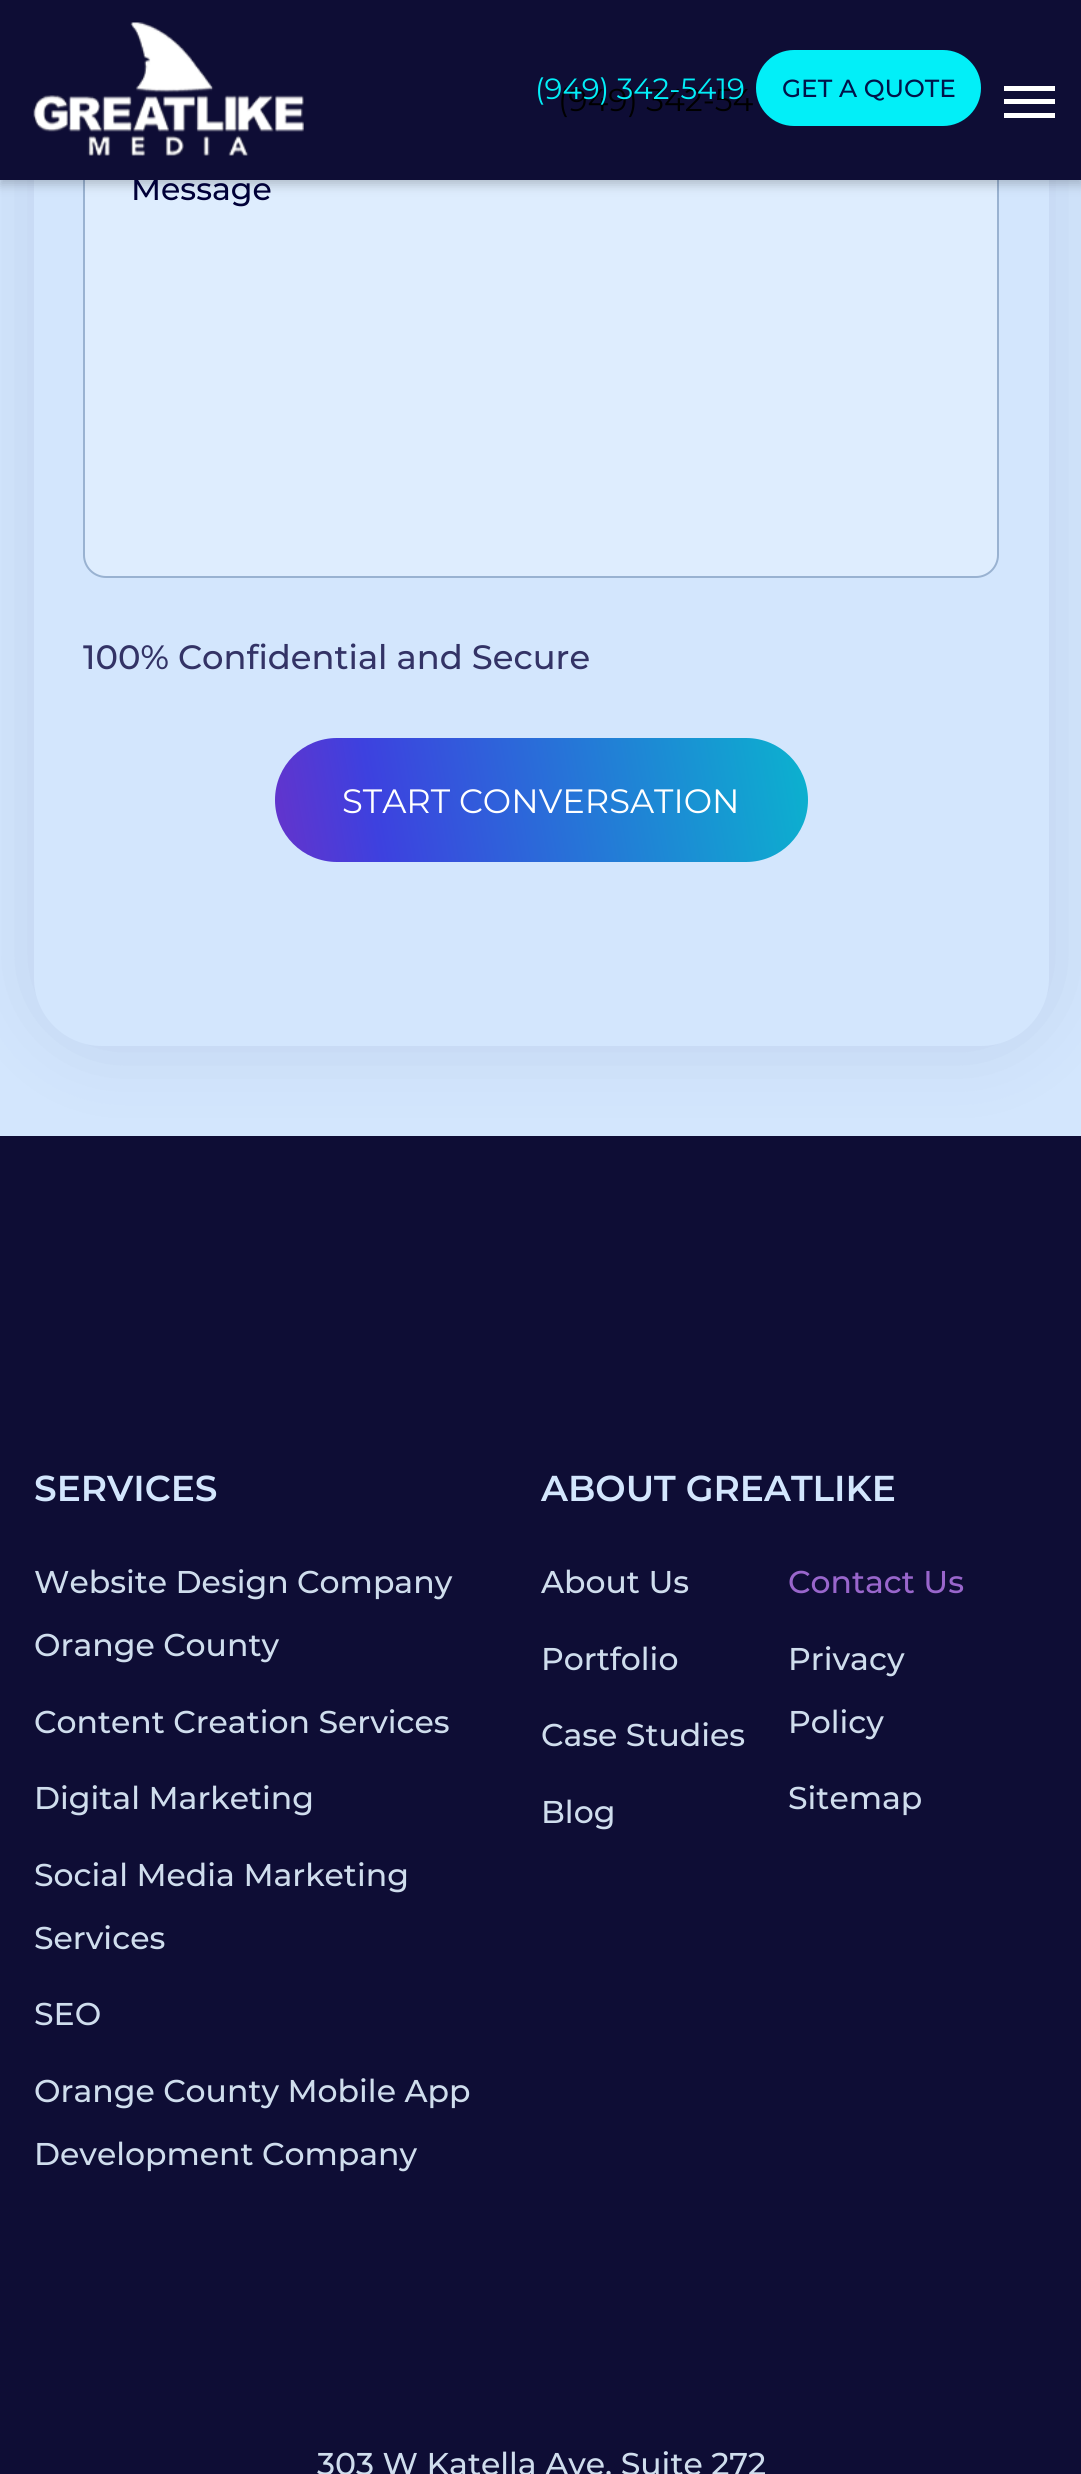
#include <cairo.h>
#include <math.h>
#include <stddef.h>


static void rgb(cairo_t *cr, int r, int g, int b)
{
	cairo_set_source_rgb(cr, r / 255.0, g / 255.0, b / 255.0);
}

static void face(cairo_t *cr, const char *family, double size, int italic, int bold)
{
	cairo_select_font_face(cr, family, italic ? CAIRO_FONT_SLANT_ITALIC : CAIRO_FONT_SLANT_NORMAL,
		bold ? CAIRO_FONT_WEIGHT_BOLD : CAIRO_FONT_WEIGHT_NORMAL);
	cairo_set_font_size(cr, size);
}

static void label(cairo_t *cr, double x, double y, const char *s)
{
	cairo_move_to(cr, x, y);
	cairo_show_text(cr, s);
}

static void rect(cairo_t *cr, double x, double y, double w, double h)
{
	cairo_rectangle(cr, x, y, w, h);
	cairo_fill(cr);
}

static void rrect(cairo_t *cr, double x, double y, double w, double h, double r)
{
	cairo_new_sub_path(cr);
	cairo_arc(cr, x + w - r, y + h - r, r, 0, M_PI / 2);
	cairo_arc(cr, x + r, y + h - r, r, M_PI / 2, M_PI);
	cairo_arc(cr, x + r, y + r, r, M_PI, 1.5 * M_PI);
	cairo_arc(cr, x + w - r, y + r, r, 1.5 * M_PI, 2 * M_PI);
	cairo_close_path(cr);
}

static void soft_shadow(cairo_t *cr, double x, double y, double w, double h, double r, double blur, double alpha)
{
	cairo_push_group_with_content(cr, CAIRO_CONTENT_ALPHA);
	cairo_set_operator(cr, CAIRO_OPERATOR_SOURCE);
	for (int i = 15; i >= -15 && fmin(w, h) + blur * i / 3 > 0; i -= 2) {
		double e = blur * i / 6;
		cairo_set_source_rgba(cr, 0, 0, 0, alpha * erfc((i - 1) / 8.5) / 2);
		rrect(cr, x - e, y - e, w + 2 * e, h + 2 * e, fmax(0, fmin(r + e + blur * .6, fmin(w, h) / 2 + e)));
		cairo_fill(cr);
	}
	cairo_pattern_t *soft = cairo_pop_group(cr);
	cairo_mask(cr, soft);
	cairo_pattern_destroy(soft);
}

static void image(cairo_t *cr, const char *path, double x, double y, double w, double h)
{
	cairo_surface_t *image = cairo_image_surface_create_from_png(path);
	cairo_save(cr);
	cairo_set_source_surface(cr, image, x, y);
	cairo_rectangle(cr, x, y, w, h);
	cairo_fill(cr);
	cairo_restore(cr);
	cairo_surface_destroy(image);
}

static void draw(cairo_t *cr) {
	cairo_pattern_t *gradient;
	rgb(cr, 211, 230, 253);
	cairo_paint(cr);
	rgb(cr, 30, 50, 111);
	soft_shadow(cr, 34, -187, 1015, 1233, 68, 39.5, 0.12);
	rgb(cr, 211, 230, 253);
	rrect(cr, 34, -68, 1015, 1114, 68);
	cairo_fill(cr);
	rgb(cr, 222, 237, 254);
	rrect(cr, 84, 125, 914, 452, 22);
	cairo_fill_preserve(cr);
	rgb(cr, 153, 178, 209);
	cairo_stroke(cr);
	rgb(cr, 0, 0, 0);
	soft_shadow(cr, 0, 5, 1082, 180, 0, 5.5, 0.2);
	face(cr, "Montserrat Medium", 31.5, 0, 0);
	rgb(cr, 0, 0, 56);
	label(cr, 131, 200, "Message");
	rgb(cr, 14, 13, 53);
	rect(cr, 0, 0, 1081, 180);
	image(cr, "image0.png", 33, 22, 271, 134);
	face(cr, "Montserrat", 31.5, 0, 0);
	rgb(cr, 0, 0, 0);
	label(cr, 558, 111, "(949) 342-54");
	face(cr, "Montserrat", 29.25, 0, 0);
	rgb(cr, 2, 239, 248);
	label(cr, 535, 99, "(949) 342-5419");
	rrect(cr, 758.5, 52.5, 220, 71, 35.5);
	cairo_fill_preserve(cr);
	cairo_set_line_width(cr, 5);
	cairo_stroke(cr);
	face(cr, "Montserrat Medium", 24.75, 0, 0);
	rgb(cr, 0, 19, 74);
	label(cr, 782, 97, "GET A QUOTE");
	rgb(cr, 255, 255, 255);
	rect(cr, 1004, 86, 51, 5);
	rect(cr, 1004, 99, 51, 5);
	rect(cr, 1004, 113, 51, 5);
	face(cr, "Montserrat Medium", 33.75, 0, 0);
	rgb(cr, 51, 51, 102);
	label(cr, 83, 669, "100% Confidential and Secure");
	gradient = cairo_pattern_create_linear(280, 893, 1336, 707);
	cairo_pattern_add_color_stop_rgba(gradient, 0, 0.396, 0.2, 0.796, 1);
	cairo_pattern_add_color_stop_rgba(gradient, 0.1, 0.239, 0.255, 0.875, 1);
	cairo_pattern_add_color_stop_rgba(gradient, 0.6, 0, 0.796, 0.796, 1);
	cairo_set_source(cr, gradient);
	cairo_pattern_destroy(gradient);
	rrect(cr, 275, 738, 533, 124, 62);
	cairo_fill(cr);
	face(cr, "Montserrat", 33.75, 0, 0);
	rgb(cr, 255, 255, 255);
	label(cr, 342, 813, "START CONVERSATION");
	rgb(cr, 14, 13, 53);
	rect(cr, 0, 1136, 1081, 1338);
	face(cr, "Montserrat SemiBold", 36, 0, 0);
	rgb(cr, 211, 230, 253);
	label(cr, 34, 1501, "SERVICES");
	face(cr, "Montserrat Medium", 31.5, 0, 0);
	rgb(cr, 207, 221, 237);
	label(cr, 34, 1593, "Website Design Company");
	label(cr, 34, 1656, "Orange County");
	label(cr, 34, 1733, "Content Creation Services");
	label(cr, 34, 1809, "Digital Marketing");
	label(cr, 34, 1886, "Social Media Marketing");
	label(cr, 34, 1949, "Services");
	label(cr, 34, 2025, "SEO");
	label(cr, 34, 2102, "Orange County Mobile App");
	label(cr, 34, 2165, "Development Company");
	face(cr, "Montserrat SemiBold", 36, 0, 0);
	rgb(cr, 211, 230, 253);
	label(cr, 541, 1501, "ABOUT GREATLIKE");
	face(cr, "Montserrat Medium", 31.5, 0, 0);
	rgb(cr, 207, 221, 237);
	label(cr, 541, 1593, "About Us");
	rgb(cr, 153, 102, 204);
	label(cr, 788, 1593, "Contact Us");
	rgb(cr, 207, 221, 237);
	label(cr, 541, 1670, "Portfolio");
	label(cr, 788, 1670, "Privacy");
	label(cr, 788, 1733, "Policy");
	label(cr, 541, 1746, "Case Studies");
	label(cr, 541, 1823, "Blog");
	label(cr, 788, 1809, "Sitemap");
	label(cr, 317, 2475, "303 W Katella Ave. Suite 272");
}

int main(void) {
	cairo_surface_t *surface = cairo_image_surface_create(CAIRO_FORMAT_RGB24, 1081, 2474);
	cairo_t *cr = cairo_create(surface);
	cairo_font_options_t *options = cairo_font_options_create();
	cairo_font_options_set_hint_metrics(options, CAIRO_HINT_METRICS_OFF);
	cairo_font_options_set_hint_style(options, CAIRO_HINT_STYLE_NONE);
	cairo_set_font_options(cr, options);
	cairo_set_miter_limit(cr, 4);
	draw(cr);
	cairo_surface_write_to_png(surface, "render.png");
	cairo_font_options_destroy(options);
	cairo_destroy(cr);
	cairo_surface_destroy(surface);
	return 0;
}
